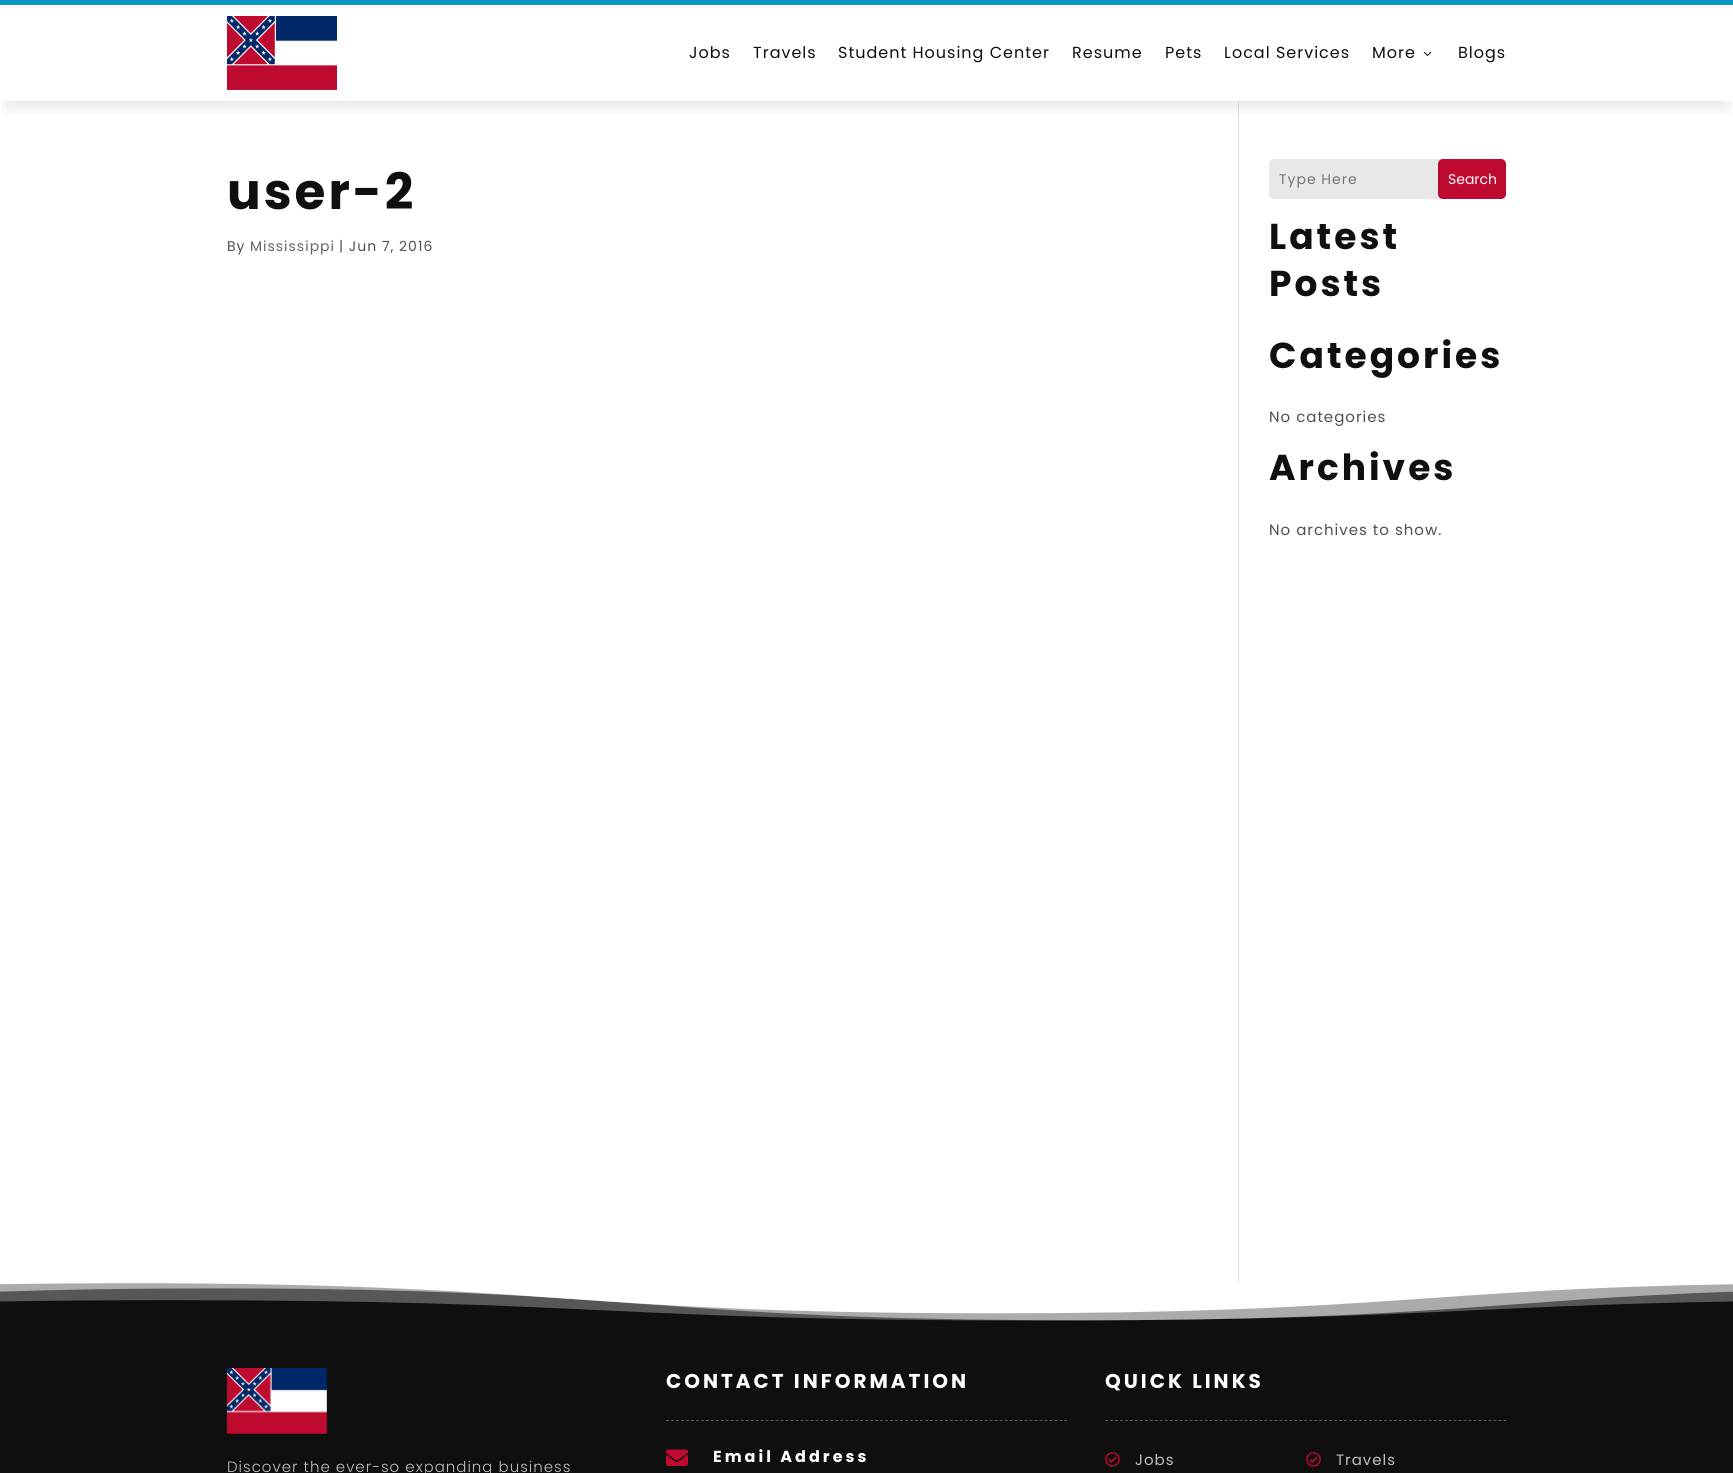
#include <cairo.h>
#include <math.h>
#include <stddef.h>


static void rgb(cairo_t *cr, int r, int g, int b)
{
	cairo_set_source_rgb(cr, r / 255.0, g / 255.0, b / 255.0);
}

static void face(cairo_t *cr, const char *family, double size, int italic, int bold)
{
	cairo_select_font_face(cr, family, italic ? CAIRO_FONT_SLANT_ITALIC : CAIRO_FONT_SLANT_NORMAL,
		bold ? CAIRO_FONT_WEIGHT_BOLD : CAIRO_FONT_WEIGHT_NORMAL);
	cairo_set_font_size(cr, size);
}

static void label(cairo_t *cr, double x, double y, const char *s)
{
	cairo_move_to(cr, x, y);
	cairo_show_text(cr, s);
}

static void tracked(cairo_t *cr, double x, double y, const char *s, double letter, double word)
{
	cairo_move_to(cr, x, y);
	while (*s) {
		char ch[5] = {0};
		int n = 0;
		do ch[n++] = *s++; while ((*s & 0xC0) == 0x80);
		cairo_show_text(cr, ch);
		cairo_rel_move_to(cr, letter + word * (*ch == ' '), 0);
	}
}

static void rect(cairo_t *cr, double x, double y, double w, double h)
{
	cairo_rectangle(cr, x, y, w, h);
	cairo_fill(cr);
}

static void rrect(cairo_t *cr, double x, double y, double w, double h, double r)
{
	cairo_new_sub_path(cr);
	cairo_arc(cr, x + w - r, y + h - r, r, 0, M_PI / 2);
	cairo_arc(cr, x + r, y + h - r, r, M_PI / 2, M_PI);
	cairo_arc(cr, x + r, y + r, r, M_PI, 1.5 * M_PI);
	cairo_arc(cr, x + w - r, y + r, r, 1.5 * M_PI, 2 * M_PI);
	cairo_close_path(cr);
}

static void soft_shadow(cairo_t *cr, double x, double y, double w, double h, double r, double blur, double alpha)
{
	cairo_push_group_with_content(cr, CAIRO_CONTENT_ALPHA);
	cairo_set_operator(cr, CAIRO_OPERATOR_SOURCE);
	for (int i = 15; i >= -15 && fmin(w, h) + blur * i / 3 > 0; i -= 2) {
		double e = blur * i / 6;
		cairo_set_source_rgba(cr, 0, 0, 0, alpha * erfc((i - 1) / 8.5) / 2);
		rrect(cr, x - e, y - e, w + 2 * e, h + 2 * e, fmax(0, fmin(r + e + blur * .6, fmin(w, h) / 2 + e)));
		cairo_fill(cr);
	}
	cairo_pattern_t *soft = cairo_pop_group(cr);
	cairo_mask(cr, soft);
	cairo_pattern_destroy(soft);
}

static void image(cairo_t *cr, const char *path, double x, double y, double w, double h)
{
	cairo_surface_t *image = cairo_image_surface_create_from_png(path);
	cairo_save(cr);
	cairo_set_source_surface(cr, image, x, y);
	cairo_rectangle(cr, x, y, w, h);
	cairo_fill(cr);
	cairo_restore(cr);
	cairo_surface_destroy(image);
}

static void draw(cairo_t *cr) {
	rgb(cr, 255, 255, 255);
	cairo_paint(cr);
	rgb(cr, 226, 226, 226);
	rect(cr, 1238, 101, 1, 1182);
	cairo_save(cr);
	cairo_rectangle(cr, 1, 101, 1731, 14);
	cairo_clip(cr);
	rgb(cr, 0, 0, 0);
	soft_shadow(cr, 6, 18, 1721, 89, 0, 9, 0.1);
	cairo_restore(cr);
	rgb(cr, 10, 150, 201);
	rect(cr, 0, 0, 1733, 5);
	image(cr, "image0.png", 227, 16, 110, 74);
	face(cr, "Poppins", 16, 0, 0);
	rgb(cr, 15, 15, 15);
	tracked(cr, 689, 58, "Jobs", 1, 0);
	tracked(cr, 753, 58, "Travels", 1, 0);
	tracked(cr, 838, 58, "Student Housing Center", 1, 0);
	tracked(cr, 1072, 58, "Resume", 1, 0);
	tracked(cr, 1165, 58, "Pets", 1, 0);
	tracked(cr, 1224, 58, "Local Services", 1, 0);
	tracked(cr, 1372, 58, "More", 1, 0);
	image(cr, "image1.png", 1423, 51, 9, 5);
	tracked(cr, 1458, 58, "Blogs", 1, 0);
	face(cr, "Poppins", 50, 0, 1);
	tracked(cr, 227, 209, "user-2", 3, 0);
	face(cr, "Poppins", 14, 0, 0);
	rgb(cr, 79, 79, 79);
	tracked(cr, 227, 251, "By", 1, 0);
	rgb(cr, 102, 102, 102);
	tracked(cr, 250, 251, "Mississippi", 1, 0);
	rgb(cr, 79, 79, 79);
	tracked(cr, 339, 251, "| Jun 7, 2016", 1, 0);
	rgb(cr, 232, 232, 232);
	rrect(cr, 1269, 159, 237, 40, 5);
	cairo_fill(cr);
	rgb(cr, 117, 117, 117);
	tracked(cr, 1279, 184, "Type Here", 1, 0);
	rgb(cr, 191, 10, 48);
	rrect(cr, 1438, 159, 68, 40, 5);
	cairo_fill(cr);
	rgb(cr, 255, 255, 255);
	label(cr, 1448, 184, "Search");
	face(cr, "Poppins", 36, 0, 1);
	rgb(cr, 15, 15, 15);
	tracked(cr, 1269, 249, "Latest", 3, 0);
	tracked(cr, 1269, 296, "Posts", 3, 0);
	tracked(cr, 1269, 368, "Categories", 3, 0);
	face(cr, "Poppins", 15, 0, 0);
	rgb(cr, 79, 79, 79);
	tracked(cr, 1269, 422, "No categories", 1, 0);
	face(cr, "Poppins", 36, 0, 1);
	rgb(cr, 15, 15, 15);
	tracked(cr, 1269, 480, "Archives", 3, 0);
	face(cr, "Poppins", 15, 0, 0);
	rgb(cr, 79, 79, 79);
	tracked(cr, 1269, 535, "No archives to show.", 1, 0);
	rgb(cr, 15, 15, 15);
	rect(cr, 0, 1283, 1733, 190);
	image(cr, "image2.png", 0, 1283, 1733, 38);
	image(cr, "image3.png", 227, 1368, 100, 66);
	face(cr, "Poppins Light", 15, 0, 0);
	rgb(cr, 191, 191, 191);
	tracked(cr, 227, 1472, "Discover the ever-so expanding business", 1, 0);
	face(cr, "Poppins", 20, 0, 1);
	rgb(cr, 255, 255, 255);
	tracked(cr, 666, 1388, "CONTACT INFORMATION", 3, 0);
	cairo_new_path(cr);
	cairo_move_to(cr, 666, 1420.5);
	cairo_line_to(cr, 1067, 1420.5);
	rgb(cr, 85, 85, 85);
	cairo_set_line_width(cr, 1);
	cairo_set_dash(cr, (double[]){3, 1.98}, 2, 0);
	cairo_stroke(cr);
	image(cr, "image4.png", 666, 1449, 22, 17);
	face(cr, "Poppins", 16, 0, 1);
	rgb(cr, 255, 255, 255);
	tracked(cr, 713, 1462, "Email Address", 3, 0);
	face(cr, "Poppins", 20, 0, 1);
	tracked(cr, 1105, 1388, "QUICK LINKS", 3, 0);
	cairo_new_path(cr);
	cairo_move_to(cr, 1105, 1420.5);
	cairo_line_to(cr, 1506, 1420.5);
	rgb(cr, 85, 85, 85);
	cairo_stroke(cr);
	image(cr, "image5.png", 1105, 1452, 15, 15);
	face(cr, "Poppins", 15, 0, 0);
	rgb(cr, 191, 191, 191);
	tracked(cr, 1135, 1465, "Jobs", 1, 0);
	image(cr, "image5.png", 1306, 1452, 15, 15);
	tracked(cr, 1336, 1465, "Travels", 1, 0);
}

int main(void) {
	cairo_surface_t *surface = cairo_image_surface_create(CAIRO_FORMAT_RGB24, 1733, 1473);
	cairo_t *cr = cairo_create(surface);
	cairo_font_options_t *options = cairo_font_options_create();
	cairo_font_options_set_hint_metrics(options, CAIRO_HINT_METRICS_OFF);
	cairo_font_options_set_hint_style(options, CAIRO_HINT_STYLE_NONE);
	cairo_set_font_options(cr, options);
	cairo_set_miter_limit(cr, 4);
	draw(cr);
	cairo_surface_write_to_png(surface, "render.png");
	cairo_font_options_destroy(options);
	cairo_destroy(cr);
	cairo_surface_destroy(surface);
	return 0;
}
